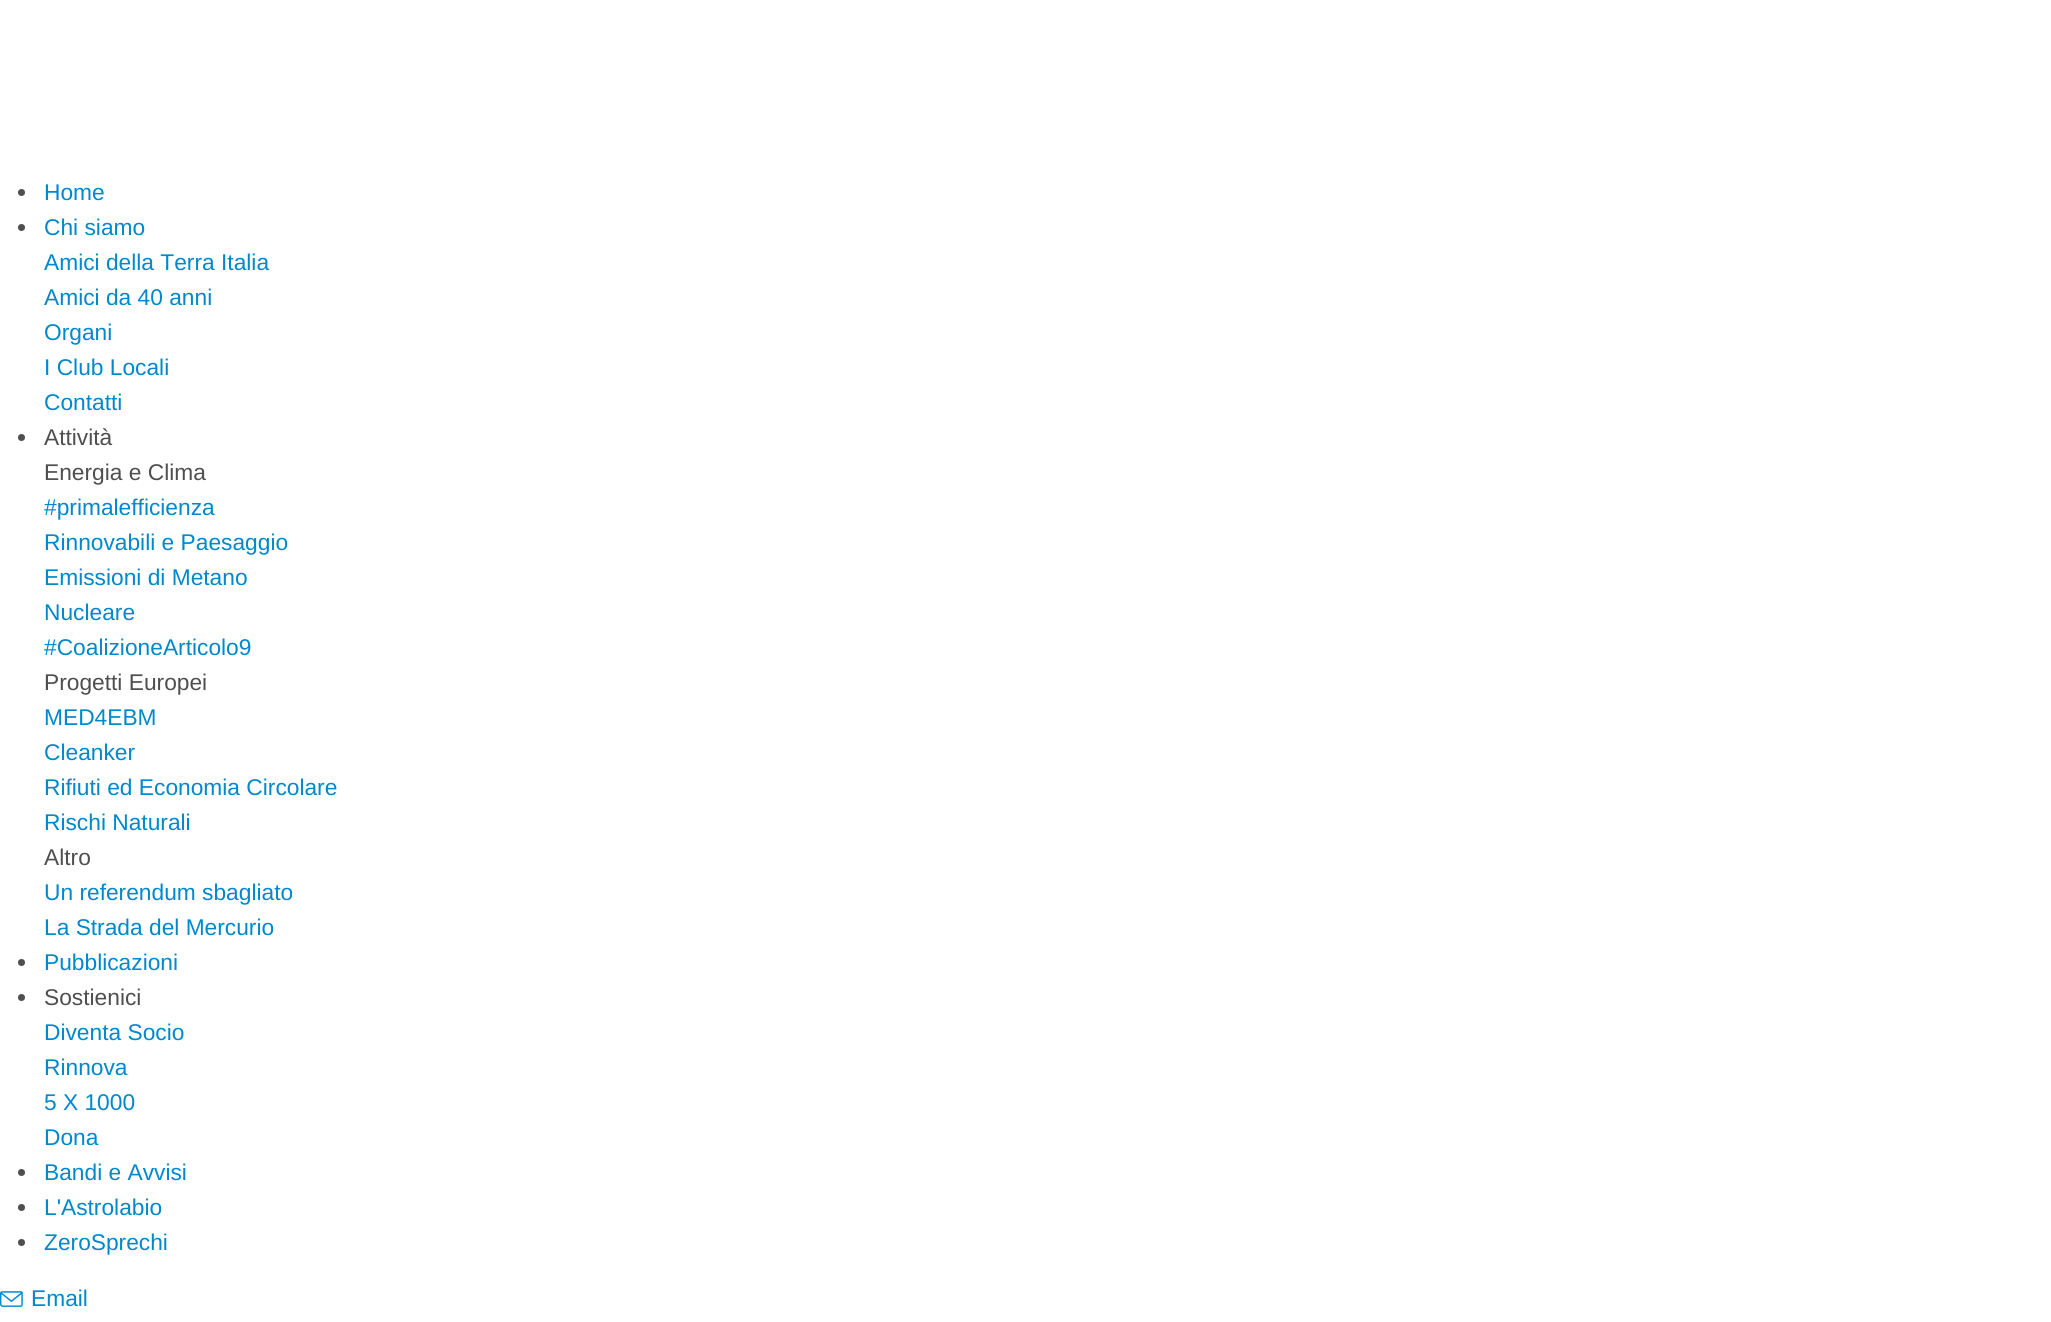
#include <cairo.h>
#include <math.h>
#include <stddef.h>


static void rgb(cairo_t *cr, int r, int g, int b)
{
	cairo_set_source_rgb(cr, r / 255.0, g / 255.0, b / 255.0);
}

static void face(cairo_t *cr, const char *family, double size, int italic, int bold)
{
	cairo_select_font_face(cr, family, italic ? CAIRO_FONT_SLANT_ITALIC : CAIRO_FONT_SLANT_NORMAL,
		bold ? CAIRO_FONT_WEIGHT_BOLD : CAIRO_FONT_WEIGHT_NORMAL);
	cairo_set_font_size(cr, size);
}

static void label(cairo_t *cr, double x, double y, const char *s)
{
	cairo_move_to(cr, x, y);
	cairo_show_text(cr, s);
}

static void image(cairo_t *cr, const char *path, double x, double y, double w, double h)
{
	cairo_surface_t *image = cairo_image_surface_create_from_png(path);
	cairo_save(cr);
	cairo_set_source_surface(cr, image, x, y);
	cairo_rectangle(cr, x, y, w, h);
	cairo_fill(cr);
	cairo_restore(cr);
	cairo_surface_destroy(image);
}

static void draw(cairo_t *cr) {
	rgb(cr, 255, 255, 255);
	cairo_paint(cr);
	rgb(cr, 80, 79, 79);
	cairo_arc(cr, 21.5, 192.5, 3.5, 0, 2 * M_PI);
	cairo_fill(cr);
	face(cr, "Liberation Sans", 22.75, 0, 0);
	rgb(cr, 0, 136, 204);
	label(cr, 44, 200, "Home");
	rgb(cr, 80, 79, 79);
	cairo_new_path(cr);
	cairo_arc(cr, 21.5, 227.5, 3.5, 0, 2 * M_PI);
	cairo_fill(cr);
	rgb(cr, 0, 136, 204);
	label(cr, 44, 235, "Chi siamo");
	label(cr, 44, 270, "Amici della Terra Italia");
	label(cr, 44, 305, "Amici da 40 anni");
	label(cr, 44, 340, "Organi");
	label(cr, 44, 375, "I Club Locali");
	label(cr, 44, 410, "Contatti");
	rgb(cr, 80, 79, 79);
	cairo_new_path(cr);
	cairo_arc(cr, 21.5, 437.5, 3.5, 0, 2 * M_PI);
	cairo_fill(cr);
	label(cr, 44, 445, "Attività");
	label(cr, 44, 480, "Energia e Clima");
	rgb(cr, 0, 136, 204);
	label(cr, 44, 515, "#primalefficienza");
	label(cr, 44, 550, "Rinnovabili e Paesaggio");
	label(cr, 44, 585, "Emissioni di Metano");
	label(cr, 44, 620, "Nucleare");
	label(cr, 44, 655, "#CoalizioneArticolo9");
	rgb(cr, 80, 79, 79);
	label(cr, 44, 690, "Progetti Europei");
	rgb(cr, 0, 136, 204);
	label(cr, 44, 725, "MED4EBM");
	label(cr, 44, 760, "Cleanker");
	label(cr, 44, 795, "Rifiuti ed Economia Circolare");
	label(cr, 44, 830, "Rischi Naturali");
	rgb(cr, 80, 79, 79);
	label(cr, 44, 865, "Altro");
	rgb(cr, 0, 136, 204);
	label(cr, 44, 900, "Un referendum sbagliato");
	label(cr, 44, 935, "La Strada del Mercurio");
	rgb(cr, 80, 79, 79);
	cairo_new_path(cr);
	cairo_arc(cr, 21.5, 962.5, 3.5, 0, 2 * M_PI);
	cairo_fill(cr);
	rgb(cr, 0, 136, 204);
	label(cr, 44, 970, "Pubblicazioni");
	rgb(cr, 80, 79, 79);
	cairo_new_path(cr);
	cairo_arc(cr, 21.5, 997.5, 3.5, 0, 2 * M_PI);
	cairo_fill(cr);
	label(cr, 44, 1005, "Sostienici");
	rgb(cr, 0, 136, 204);
	label(cr, 44, 1040, "Diventa Socio");
	label(cr, 44, 1075, "Rinnova");
	label(cr, 44, 1110, "5 X 1000");
	label(cr, 44, 1145, "Dona");
	rgb(cr, 80, 79, 79);
	cairo_new_path(cr);
	cairo_arc(cr, 21.5, 1172.5, 3.5, 0, 2 * M_PI);
	cairo_fill(cr);
	rgb(cr, 0, 136, 204);
	label(cr, 44, 1180, "Bandi e Avvisi");
	rgb(cr, 80, 79, 79);
	cairo_new_path(cr);
	cairo_arc(cr, 21.5, 1207.5, 3.5, 0, 2 * M_PI);
	cairo_fill(cr);
	rgb(cr, 0, 136, 204);
	label(cr, 44, 1215, "L'Astrolabio");
	rgb(cr, 80, 79, 79);
	cairo_new_path(cr);
	cairo_arc(cr, 21.5, 1242.5, 3.5, 0, 2 * M_PI);
	cairo_fill(cr);
	rgb(cr, 0, 136, 204);
	label(cr, 44, 1250, "ZeroSprechi");
	image(cr, "image0.png", 0, 1291, 23, 16);
	label(cr, 31, 1306, "Email");
}

int main(void) {
	cairo_surface_t *surface = cairo_image_surface_create(CAIRO_FORMAT_RGB24, 2051, 1322);
	cairo_t *cr = cairo_create(surface);
	cairo_font_options_t *options = cairo_font_options_create();
	cairo_font_options_set_hint_metrics(options, CAIRO_HINT_METRICS_OFF);
	cairo_font_options_set_hint_style(options, CAIRO_HINT_STYLE_NONE);
	cairo_set_font_options(cr, options);
	cairo_set_miter_limit(cr, 4);
	draw(cr);
	cairo_surface_write_to_png(surface, "render.png");
	cairo_font_options_destroy(options);
	cairo_destroy(cr);
	cairo_surface_destroy(surface);
	return 0;
}
